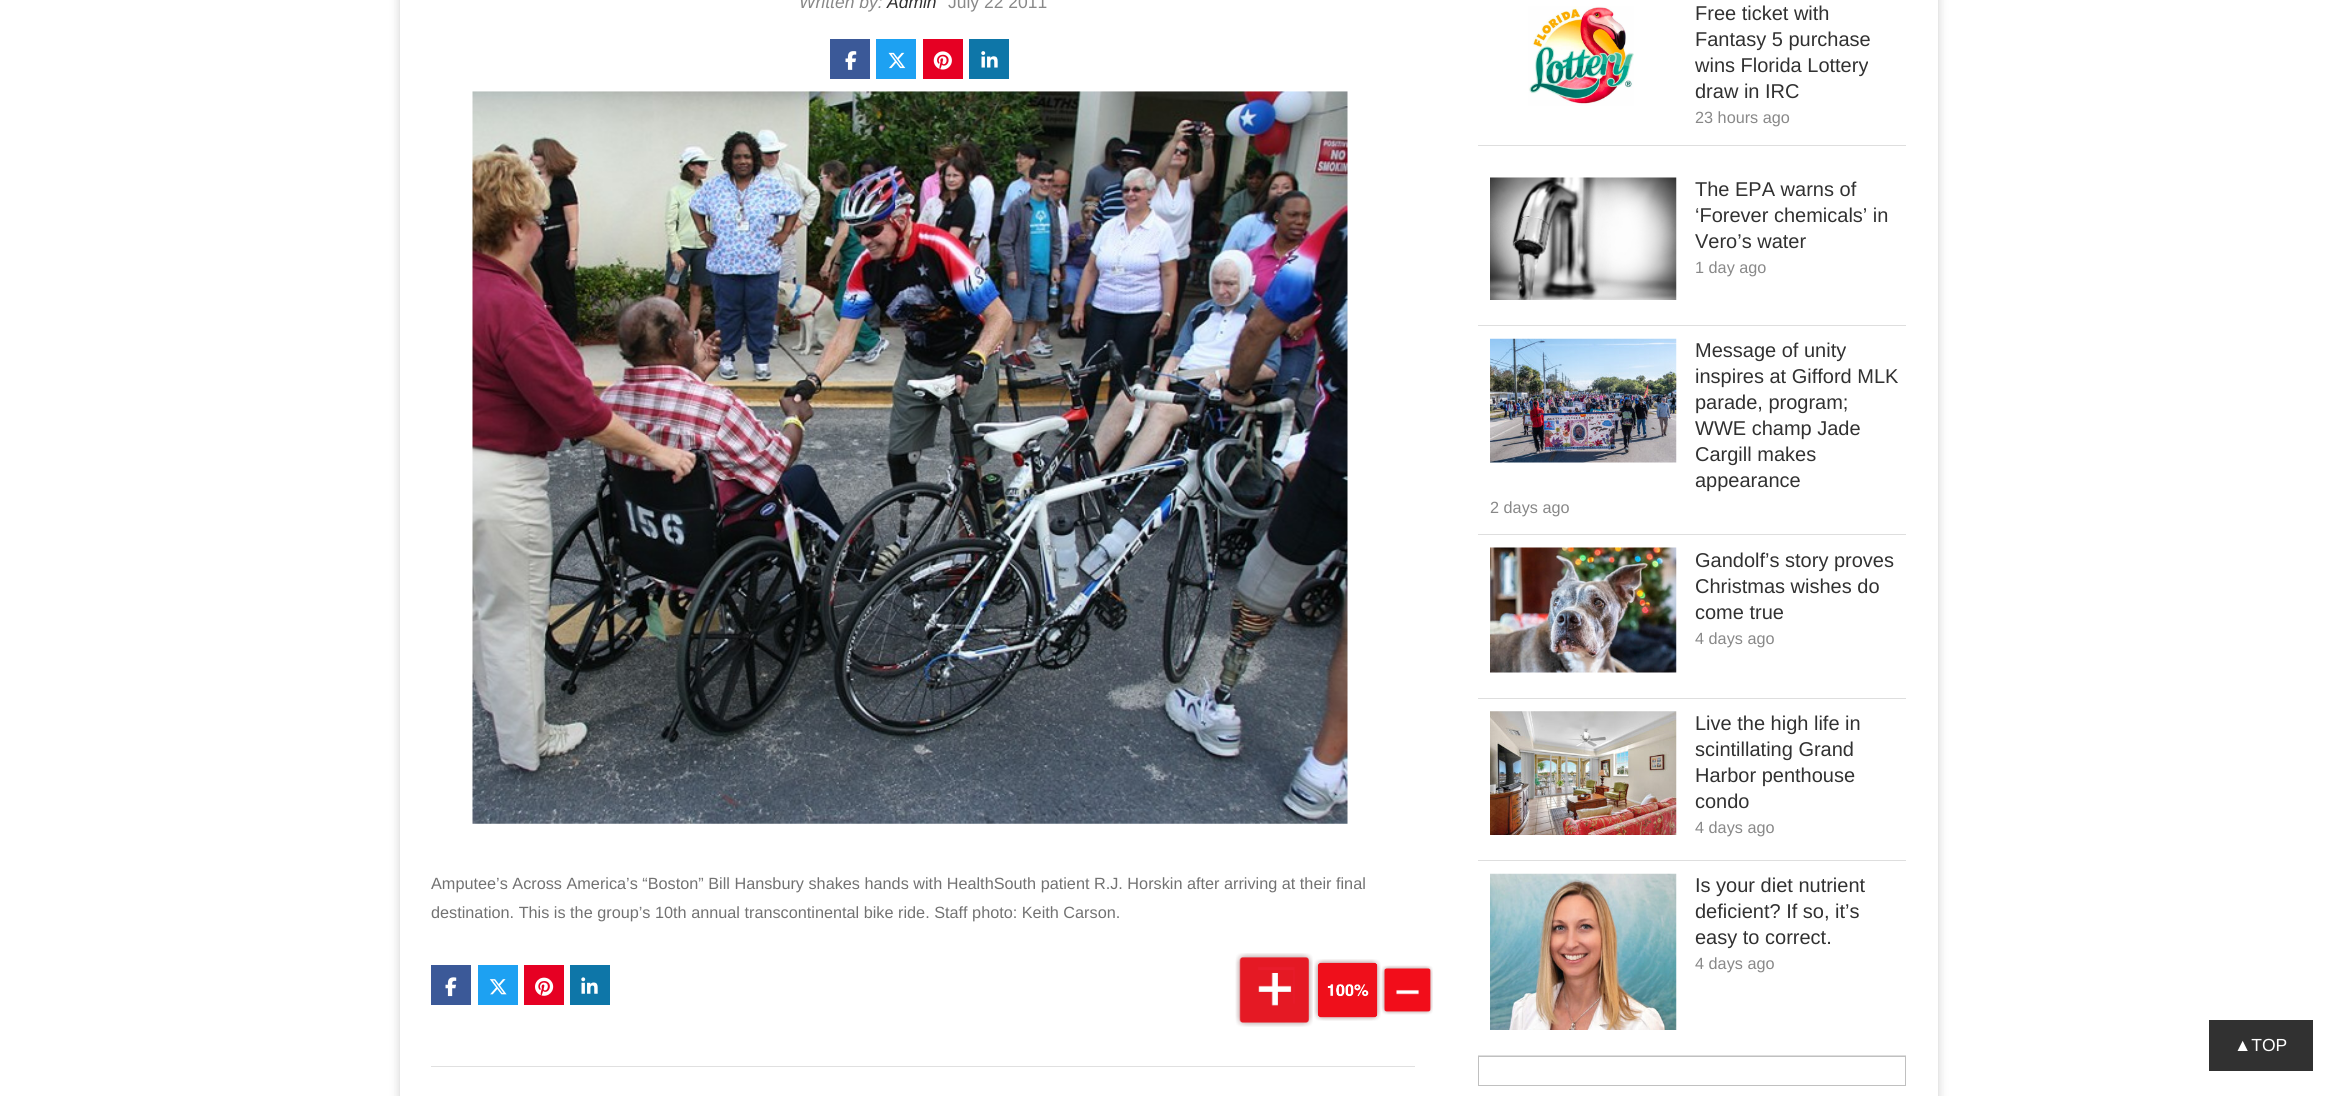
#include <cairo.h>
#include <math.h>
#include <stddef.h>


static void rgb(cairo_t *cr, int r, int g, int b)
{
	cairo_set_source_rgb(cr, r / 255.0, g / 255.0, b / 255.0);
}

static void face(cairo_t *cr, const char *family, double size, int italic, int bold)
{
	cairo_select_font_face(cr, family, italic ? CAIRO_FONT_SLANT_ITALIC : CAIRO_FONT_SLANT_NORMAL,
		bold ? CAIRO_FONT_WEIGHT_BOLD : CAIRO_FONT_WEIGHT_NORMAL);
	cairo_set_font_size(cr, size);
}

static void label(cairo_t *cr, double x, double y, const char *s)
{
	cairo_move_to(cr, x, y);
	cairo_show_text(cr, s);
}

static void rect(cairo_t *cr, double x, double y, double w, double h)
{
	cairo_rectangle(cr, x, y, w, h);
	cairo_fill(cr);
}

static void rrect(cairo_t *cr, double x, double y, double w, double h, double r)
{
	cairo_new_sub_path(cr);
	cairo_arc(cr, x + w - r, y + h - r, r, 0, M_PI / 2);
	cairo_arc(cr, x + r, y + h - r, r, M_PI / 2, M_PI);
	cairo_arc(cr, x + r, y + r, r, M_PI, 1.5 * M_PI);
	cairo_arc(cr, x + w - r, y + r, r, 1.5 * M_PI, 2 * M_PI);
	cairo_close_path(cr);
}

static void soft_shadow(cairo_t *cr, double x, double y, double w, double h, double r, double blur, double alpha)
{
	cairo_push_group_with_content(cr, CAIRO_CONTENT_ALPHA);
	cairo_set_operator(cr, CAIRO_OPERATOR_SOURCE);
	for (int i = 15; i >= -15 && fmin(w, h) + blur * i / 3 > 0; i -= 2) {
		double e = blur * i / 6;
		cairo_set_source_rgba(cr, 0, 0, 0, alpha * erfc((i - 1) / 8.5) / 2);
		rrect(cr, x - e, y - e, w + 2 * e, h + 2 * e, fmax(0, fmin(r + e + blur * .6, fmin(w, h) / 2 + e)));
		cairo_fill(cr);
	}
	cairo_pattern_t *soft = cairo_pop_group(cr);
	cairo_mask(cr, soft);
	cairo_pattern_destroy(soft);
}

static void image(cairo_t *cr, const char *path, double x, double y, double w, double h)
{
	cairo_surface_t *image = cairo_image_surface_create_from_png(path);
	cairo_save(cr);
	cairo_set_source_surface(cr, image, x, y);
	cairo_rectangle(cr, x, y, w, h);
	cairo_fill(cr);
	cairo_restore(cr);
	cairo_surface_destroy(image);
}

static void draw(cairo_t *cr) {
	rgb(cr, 255, 255, 255);
	cairo_paint(cr);
	rgb(cr, 0, 0, 0);
	soft_shadow(cr, 400, -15, 1538, 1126, 0, 5, 0.2);
	rgb(cr, 255, 255, 255);
	rect(cr, 400, 0, 1538, 1096);
	face(cr, "Liberation Sans", 17.5, 1, 0);
	rgb(cr, 136, 136, 136);
	label(cr, 799, 8, "Written by:");
	rgb(cr, 49, 49, 49);
	label(cr, 887, 8, "Admin");
	face(cr, "Liberation Sans", 17.5, 0, 0);
	rgb(cr, 136, 136, 136);
	label(cr, 948, 8, "July 22 2011");
	rgb(cr, 59, 89, 152);
	rect(cr, 830, 39, 40, 40);
	image(cr, "image0.png", 845, 51, 12, 19);
	rgb(cr, 29, 161, 242);
	rect(cr, 876, 39, 40, 40);
	image(cr, "image1.png", 888, 52, 18, 17);
	rgb(cr, 230, 0, 35);
	rect(cr, 923, 39, 40, 40);
	image(cr, "image2.png", 933, 51, 19, 19);
	rgb(cr, 14, 118, 168);
	rect(cr, 969, 39, 40, 40);
	image(cr, "image3.png", 981, 51, 17, 17);
	image(cr, "image4.png", 472, 91, 876, 733);
	face(cr, "Liberation Sans", 16.25, 0, 0);
	rgb(cr, 114, 114, 114);
	label(cr, 431, 889, "Amputee’s Across America’s “Boston” Bill Hansbury shakes hands with HealthSouth patient R.J. Horskin after arriving at their final");
	label(cr, 431, 918, "destination. This is the group’s 10th annual transcontinental bike ride. Staff photo: Keith Carson.");
	rgb(cr, 59, 89, 152);
	rect(cr, 431, 965, 40, 40);
	image(cr, "image5.png", 445, 977, 12, 20);
	rgb(cr, 29, 161, 242);
	rect(cr, 478, 965, 40, 40);
	image(cr, "image6.png", 489, 979, 18, 16);
	rgb(cr, 230, 0, 35);
	rect(cr, 524, 965, 40, 40);
	image(cr, "image7.png", 535, 977, 19, 19);
	rgb(cr, 14, 118, 168);
	rect(cr, 570, 965, 40, 40);
	image(cr, "image8.png", 581, 977, 17, 17);
	image(cr, "image9.png", 1235, 953, 78, 74);
	image(cr, "image10.png", 1314, 959, 67, 62);
	image(cr, "image11.png", 1381, 965, 52, 50);
	rgb(cr, 224, 224, 224);
	rect(cr, 431, 1066, 984, 1);
	rgb(cr, 222, 222, 222);
	rect(cr, 1478, 145, 428, 1);
	image(cr, "image12.png", 1528, 6, 106, 100);
	face(cr, "Liberation Sans", 20, 0, 0);
	rgb(cr, 49, 49, 49);
	label(cr, 1695, 20, "Free ticket with");
	label(cr, 1695, 46, "Fantasy 5 purchase");
	label(cr, 1695, 72, "wins Florida Lottery");
	label(cr, 1695, 98, "draw in IRC");
	face(cr, "Liberation Sans", 16.25, 0, 0);
	rgb(cr, 136, 136, 136);
	label(cr, 1695, 123, "23 hours ago");
	rgb(cr, 222, 222, 222);
	rect(cr, 1478, 325, 428, 1);
	image(cr, "image13.png", 1490, 177, 187, 123);
	face(cr, "Liberation Sans", 20, 0, 0);
	rgb(cr, 49, 49, 49);
	label(cr, 1695, 196, "The EPA warns of");
	label(cr, 1695, 222, "‘Forever chemicals’ in");
	label(cr, 1695, 248, "Vero’s water");
	face(cr, "Liberation Sans", 16.25, 0, 0);
	rgb(cr, 136, 136, 136);
	label(cr, 1695, 273, "1 day ago");
	rgb(cr, 222, 222, 222);
	rect(cr, 1478, 534, 428, 1);
	image(cr, "image14.png", 1490, 338, 187, 125);
	face(cr, "Liberation Sans", 20, 0, 0);
	rgb(cr, 49, 49, 49);
	label(cr, 1695, 357, "Message of unity");
	label(cr, 1695, 383, "inspires at Gifford MLK");
	label(cr, 1695, 409, "parade, program;");
	label(cr, 1695, 435, "WWE champ Jade");
	label(cr, 1695, 461, "Cargill makes");
	label(cr, 1695, 487, "appearance");
	face(cr, "Liberation Sans", 16.25, 0, 0);
	rgb(cr, 136, 136, 136);
	label(cr, 1490, 513, "2 days ago");
	rgb(cr, 222, 222, 222);
	rect(cr, 1478, 698, 428, 1);
	image(cr, "image15.png", 1490, 547, 187, 126);
	face(cr, "Liberation Sans", 20, 0, 0);
	rgb(cr, 49, 49, 49);
	label(cr, 1695, 567, "Gandolf’s story proves");
	label(cr, 1695, 593, "Christmas wishes do");
	label(cr, 1695, 619, "come true");
	face(cr, "Liberation Sans", 16.25, 0, 0);
	rgb(cr, 136, 136, 136);
	label(cr, 1695, 644, "4 days ago");
	rgb(cr, 222, 222, 222);
	rect(cr, 1478, 860, 428, 1);
	image(cr, "image16.png", 1490, 711, 187, 124);
	face(cr, "Liberation Sans", 20, 0, 0);
	rgb(cr, 49, 49, 49);
	label(cr, 1695, 730, "Live the high life in");
	label(cr, 1695, 756, "scintillating Grand");
	label(cr, 1695, 782, "Harbor penthouse");
	label(cr, 1695, 808, "condo");
	face(cr, "Liberation Sans", 16.25, 0, 0);
	rgb(cr, 136, 136, 136);
	label(cr, 1695, 833, "4 days ago");
	rgb(cr, 222, 222, 222);
	rect(cr, 1478, 1055, 428, 1);
	image(cr, "image17.png", 1490, 873, 187, 157);
	face(cr, "Liberation Sans", 20, 0, 0);
	rgb(cr, 49, 49, 49);
	label(cr, 1695, 892, "Is your diet nutrient");
	label(cr, 1695, 918, "deficient? If so, it’s");
	label(cr, 1695, 944, "easy to correct.");
	face(cr, "Liberation Sans", 16.25, 0, 0);
	rgb(cr, 136, 136, 136);
	label(cr, 1695, 969, "4 days ago");
	cairo_rectangle(cr, 1478.5, 1056.5, 427, 29);
	rgb(cr, 192, 192, 192);
	cairo_set_line_width(cr, 1);
	cairo_stroke(cr);
	rgb(cr, 49, 49, 49);
	rect(cr, 2209, 1020, 104, 51);
	face(cr, "Liberation Sans", 17.5, 0, 0);
	rgb(cr, 255, 255, 255);
	label(cr, 2234, 1051, "▲TOP");
}

int main(void) {
	cairo_surface_t *surface = cairo_image_surface_create(CAIRO_FORMAT_RGB24, 2337, 1096);
	cairo_t *cr = cairo_create(surface);
	cairo_font_options_t *options = cairo_font_options_create();
	cairo_font_options_set_hint_metrics(options, CAIRO_HINT_METRICS_OFF);
	cairo_font_options_set_hint_style(options, CAIRO_HINT_STYLE_NONE);
	cairo_set_font_options(cr, options);
	cairo_set_miter_limit(cr, 4);
	draw(cr);
	cairo_surface_write_to_png(surface, "render.png");
	cairo_font_options_destroy(options);
	cairo_destroy(cr);
	cairo_surface_destroy(surface);
	return 0;
}
